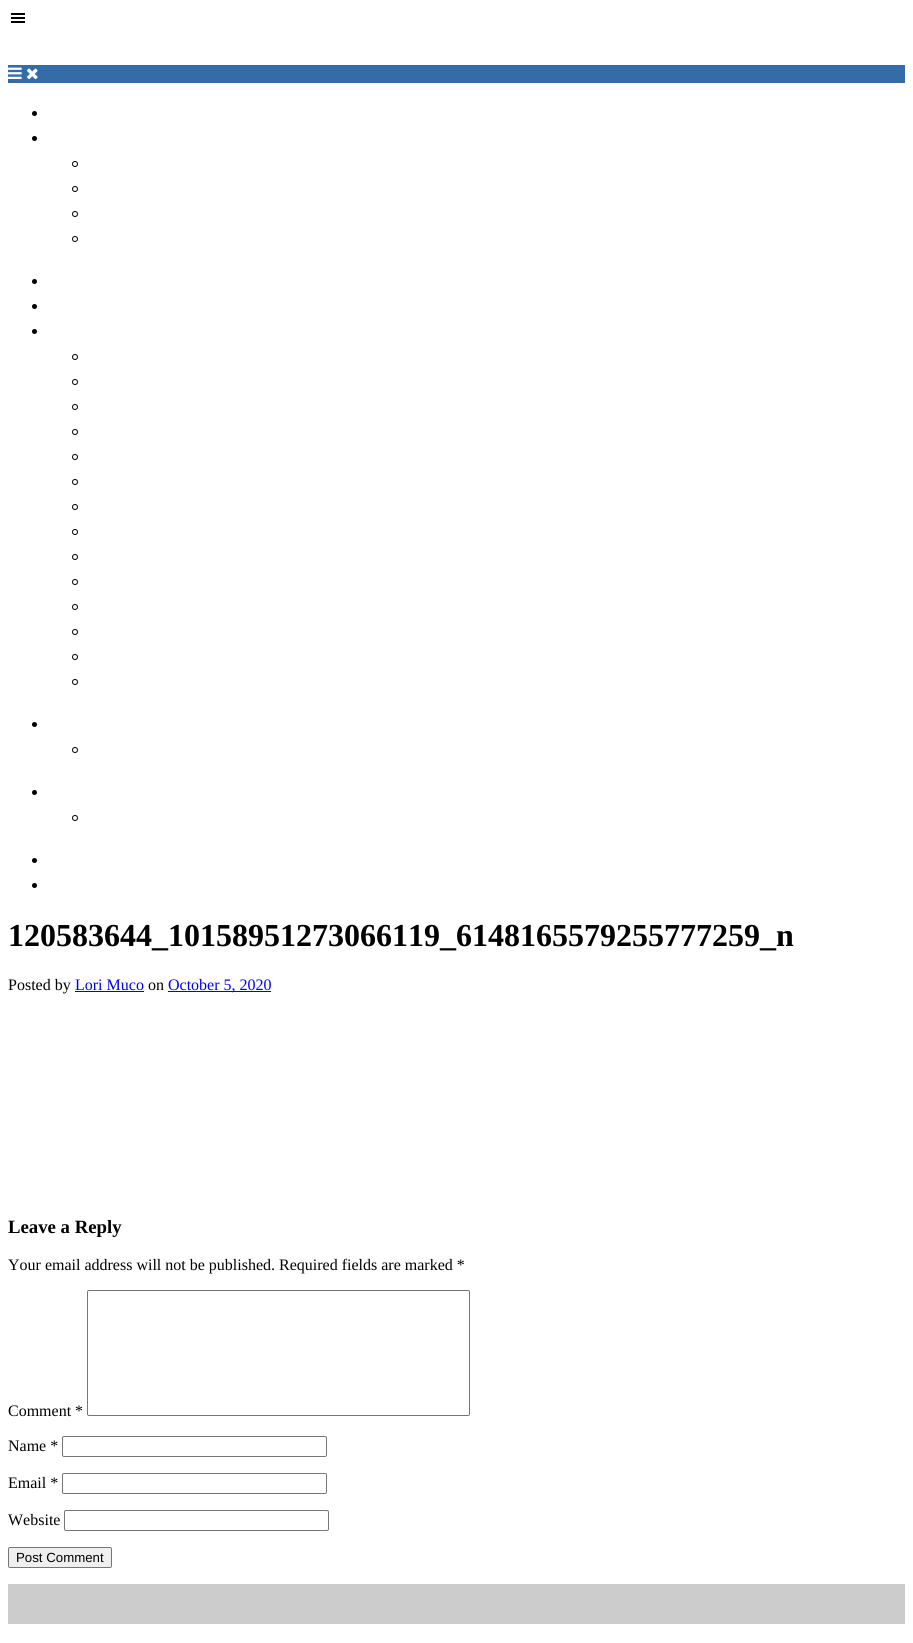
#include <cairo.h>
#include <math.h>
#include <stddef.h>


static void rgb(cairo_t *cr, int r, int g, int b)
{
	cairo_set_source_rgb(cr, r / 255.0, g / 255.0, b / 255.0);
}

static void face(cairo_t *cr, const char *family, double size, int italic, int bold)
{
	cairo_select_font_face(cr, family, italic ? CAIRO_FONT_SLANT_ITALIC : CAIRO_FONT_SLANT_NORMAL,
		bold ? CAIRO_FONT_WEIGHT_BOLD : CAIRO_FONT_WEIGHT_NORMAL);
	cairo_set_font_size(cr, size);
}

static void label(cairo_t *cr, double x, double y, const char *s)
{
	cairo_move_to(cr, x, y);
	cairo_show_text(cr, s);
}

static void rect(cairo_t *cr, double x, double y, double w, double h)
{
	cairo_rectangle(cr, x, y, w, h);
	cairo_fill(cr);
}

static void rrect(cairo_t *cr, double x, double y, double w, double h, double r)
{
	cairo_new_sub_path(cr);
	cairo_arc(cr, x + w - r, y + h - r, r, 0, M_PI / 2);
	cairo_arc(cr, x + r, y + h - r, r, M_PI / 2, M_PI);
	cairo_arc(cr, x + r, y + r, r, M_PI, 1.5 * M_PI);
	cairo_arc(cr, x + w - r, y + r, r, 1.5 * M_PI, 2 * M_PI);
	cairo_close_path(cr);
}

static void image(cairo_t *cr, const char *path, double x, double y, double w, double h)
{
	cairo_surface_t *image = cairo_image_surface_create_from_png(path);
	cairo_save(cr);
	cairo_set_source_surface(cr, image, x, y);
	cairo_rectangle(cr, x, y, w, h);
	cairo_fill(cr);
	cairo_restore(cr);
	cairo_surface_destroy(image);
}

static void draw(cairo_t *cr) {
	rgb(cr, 255, 255, 255);
	cairo_paint(cr);
	image(cr, "image0.png", 11, 13, 14, 10);
	rgb(cr, 51, 108, 166);
	rect(cr, 8, 65, 897, 18);
	image(cr, "image1.png", 8, 67, 14, 12);
	image(cr, "image2.png", 27, 68, 11, 12);
	rgb(cr, 0, 0, 0);
	cairo_arc(cr, 34.5, 113.5, 2.5, 0, 2 * M_PI);
	cairo_fill(cr);
	cairo_arc(cr, 34.5, 138.5, 2.5, 0, 2 * M_PI);
	cairo_fill(cr);
	cairo_arc(cr, 75, 164, 2.5, 0, 2 * M_PI);
	cairo_set_line_width(cr, 1);
	cairo_stroke(cr);
	cairo_arc(cr, 75, 189, 2.5, 0, 2 * M_PI);
	cairo_stroke(cr);
	cairo_arc(cr, 75, 214, 2.5, 0, 2 * M_PI);
	cairo_stroke(cr);
	cairo_arc(cr, 75, 239, 2.5, 0, 2 * M_PI);
	cairo_stroke(cr);
	cairo_arc(cr, 34.5, 281.5, 2.5, 0, 2 * M_PI);
	cairo_fill(cr);
	cairo_arc(cr, 34.5, 306.5, 2.5, 0, 2 * M_PI);
	cairo_fill(cr);
	cairo_arc(cr, 34.5, 331.5, 2.5, 0, 2 * M_PI);
	cairo_fill(cr);
	cairo_arc(cr, 75, 357, 2.5, 0, 2 * M_PI);
	cairo_stroke(cr);
	cairo_arc(cr, 75, 382, 2.5, 0, 2 * M_PI);
	cairo_stroke(cr);
	cairo_arc(cr, 75, 407, 2.5, 0, 2 * M_PI);
	cairo_stroke(cr);
	cairo_arc(cr, 75, 432, 2.5, 0, 2 * M_PI);
	cairo_stroke(cr);
	cairo_arc(cr, 75, 457, 2.5, 0, 2 * M_PI);
	cairo_stroke(cr);
	cairo_arc(cr, 75, 482, 2.5, 0, 2 * M_PI);
	cairo_stroke(cr);
	cairo_arc(cr, 75, 507, 2.5, 0, 2 * M_PI);
	cairo_stroke(cr);
	cairo_arc(cr, 75, 532, 2.5, 0, 2 * M_PI);
	cairo_stroke(cr);
	cairo_arc(cr, 75, 557, 2.5, 0, 2 * M_PI);
	cairo_stroke(cr);
	cairo_arc(cr, 75, 582, 2.5, 0, 2 * M_PI);
	cairo_stroke(cr);
	cairo_arc(cr, 75, 607, 2.5, 0, 2 * M_PI);
	cairo_stroke(cr);
	cairo_arc(cr, 75, 632, 2.5, 0, 2 * M_PI);
	cairo_stroke(cr);
	cairo_arc(cr, 75, 657, 2.5, 0, 2 * M_PI);
	cairo_stroke(cr);
	cairo_arc(cr, 75, 682, 2.5, 0, 2 * M_PI);
	cairo_stroke(cr);
	cairo_arc(cr, 34.5, 724.5, 2.5, 0, 2 * M_PI);
	cairo_fill(cr);
	cairo_arc(cr, 75, 750, 2.5, 0, 2 * M_PI);
	cairo_stroke(cr);
	cairo_arc(cr, 34.5, 792.5, 2.5, 0, 2 * M_PI);
	cairo_fill(cr);
	cairo_arc(cr, 75, 818, 2.5, 0, 2 * M_PI);
	cairo_stroke(cr);
	cairo_arc(cr, 34.5, 860.5, 2.5, 0, 2 * M_PI);
	cairo_fill(cr);
	cairo_arc(cr, 34.5, 885.5, 2.5, 0, 2 * M_PI);
	cairo_fill(cr);
	face(cr, "Liberation Serif", 32, 0, 1);
	label(cr, 8, 946, "120583644_10158951273066119_6148165579255777259_n");
	face(cr, "Liberation Serif", 16, 0, 0);
	label(cr, 8, 990, "Posted by");
	rgb(cr, 0, 0, 238);
	label(cr, 75, 990, "Lori Muco");
	rect(cr, 75, 991, 69, 1);
	rgb(cr, 0, 0, 0);
	label(cr, 148, 990, "on");
	rgb(cr, 0, 0, 238);
	rect(cr, 168, 991, 103, 1);
	label(cr, 168, 990, "October 5, 2020");
	face(cr, "Liberation Serif", 18.75, 0, 1);
	rgb(cr, 0, 0, 0);
	label(cr, 8, 1233, "Leave a Reply");
	face(cr, "Liberation Serif", 16, 0, 0);
	label(cr, 8, 1270, "Your email address will not be published. Required fields are marked *");
	label(cr, 8, 1416, "Comment *");
	rrect(cr, 87.5, 1290.5, 382, 125, 1.5);
	rgb(cr, 118, 118, 118);
	cairo_stroke(cr);
	rgb(cr, 0, 0, 0);
	label(cr, 8, 1451, "Name *");
	rrect(cr, 62.5, 1436.5, 264, 20, 1.5);
	rgb(cr, 118, 118, 118);
	cairo_stroke(cr);
	rgb(cr, 0, 0, 0);
	label(cr, 8, 1488, "Email *");
	rrect(cr, 62.5, 1473.5, 264, 20, 1.5);
	rgb(cr, 118, 118, 118);
	cairo_stroke(cr);
	rgb(cr, 0, 0, 0);
	label(cr, 8, 1525, "Website");
	rrect(cr, 64.5, 1510.5, 264, 20, 1.5);
	rgb(cr, 118, 118, 118);
	cairo_stroke(cr);
	rgb(cr, 239, 239, 239);
	rrect(cr, 8.5, 1547.5, 103, 20, 1.5);
	cairo_fill_preserve(cr);
	rgb(cr, 118, 118, 118);
	cairo_stroke(cr);
	face(cr, "Liberation Sans", 13.25, 0, 0);
	rgb(cr, 0, 0, 0);
	label(cr, 16, 1562, "Post Comment");
	rgb(cr, 204, 204, 204);
	rect(cr, 8, 1584, 897, 40);
}

int main(void) {
	cairo_surface_t *surface = cairo_image_surface_create(CAIRO_FORMAT_RGB24, 913, 1643);
	cairo_t *cr = cairo_create(surface);
	cairo_font_options_t *options = cairo_font_options_create();
	cairo_font_options_set_hint_metrics(options, CAIRO_HINT_METRICS_OFF);
	cairo_font_options_set_hint_style(options, CAIRO_HINT_STYLE_NONE);
	cairo_set_font_options(cr, options);
	cairo_set_miter_limit(cr, 4);
	draw(cr);
	cairo_surface_write_to_png(surface, "render.png");
	cairo_font_options_destroy(options);
	cairo_destroy(cr);
	cairo_surface_destroy(surface);
	return 0;
}
